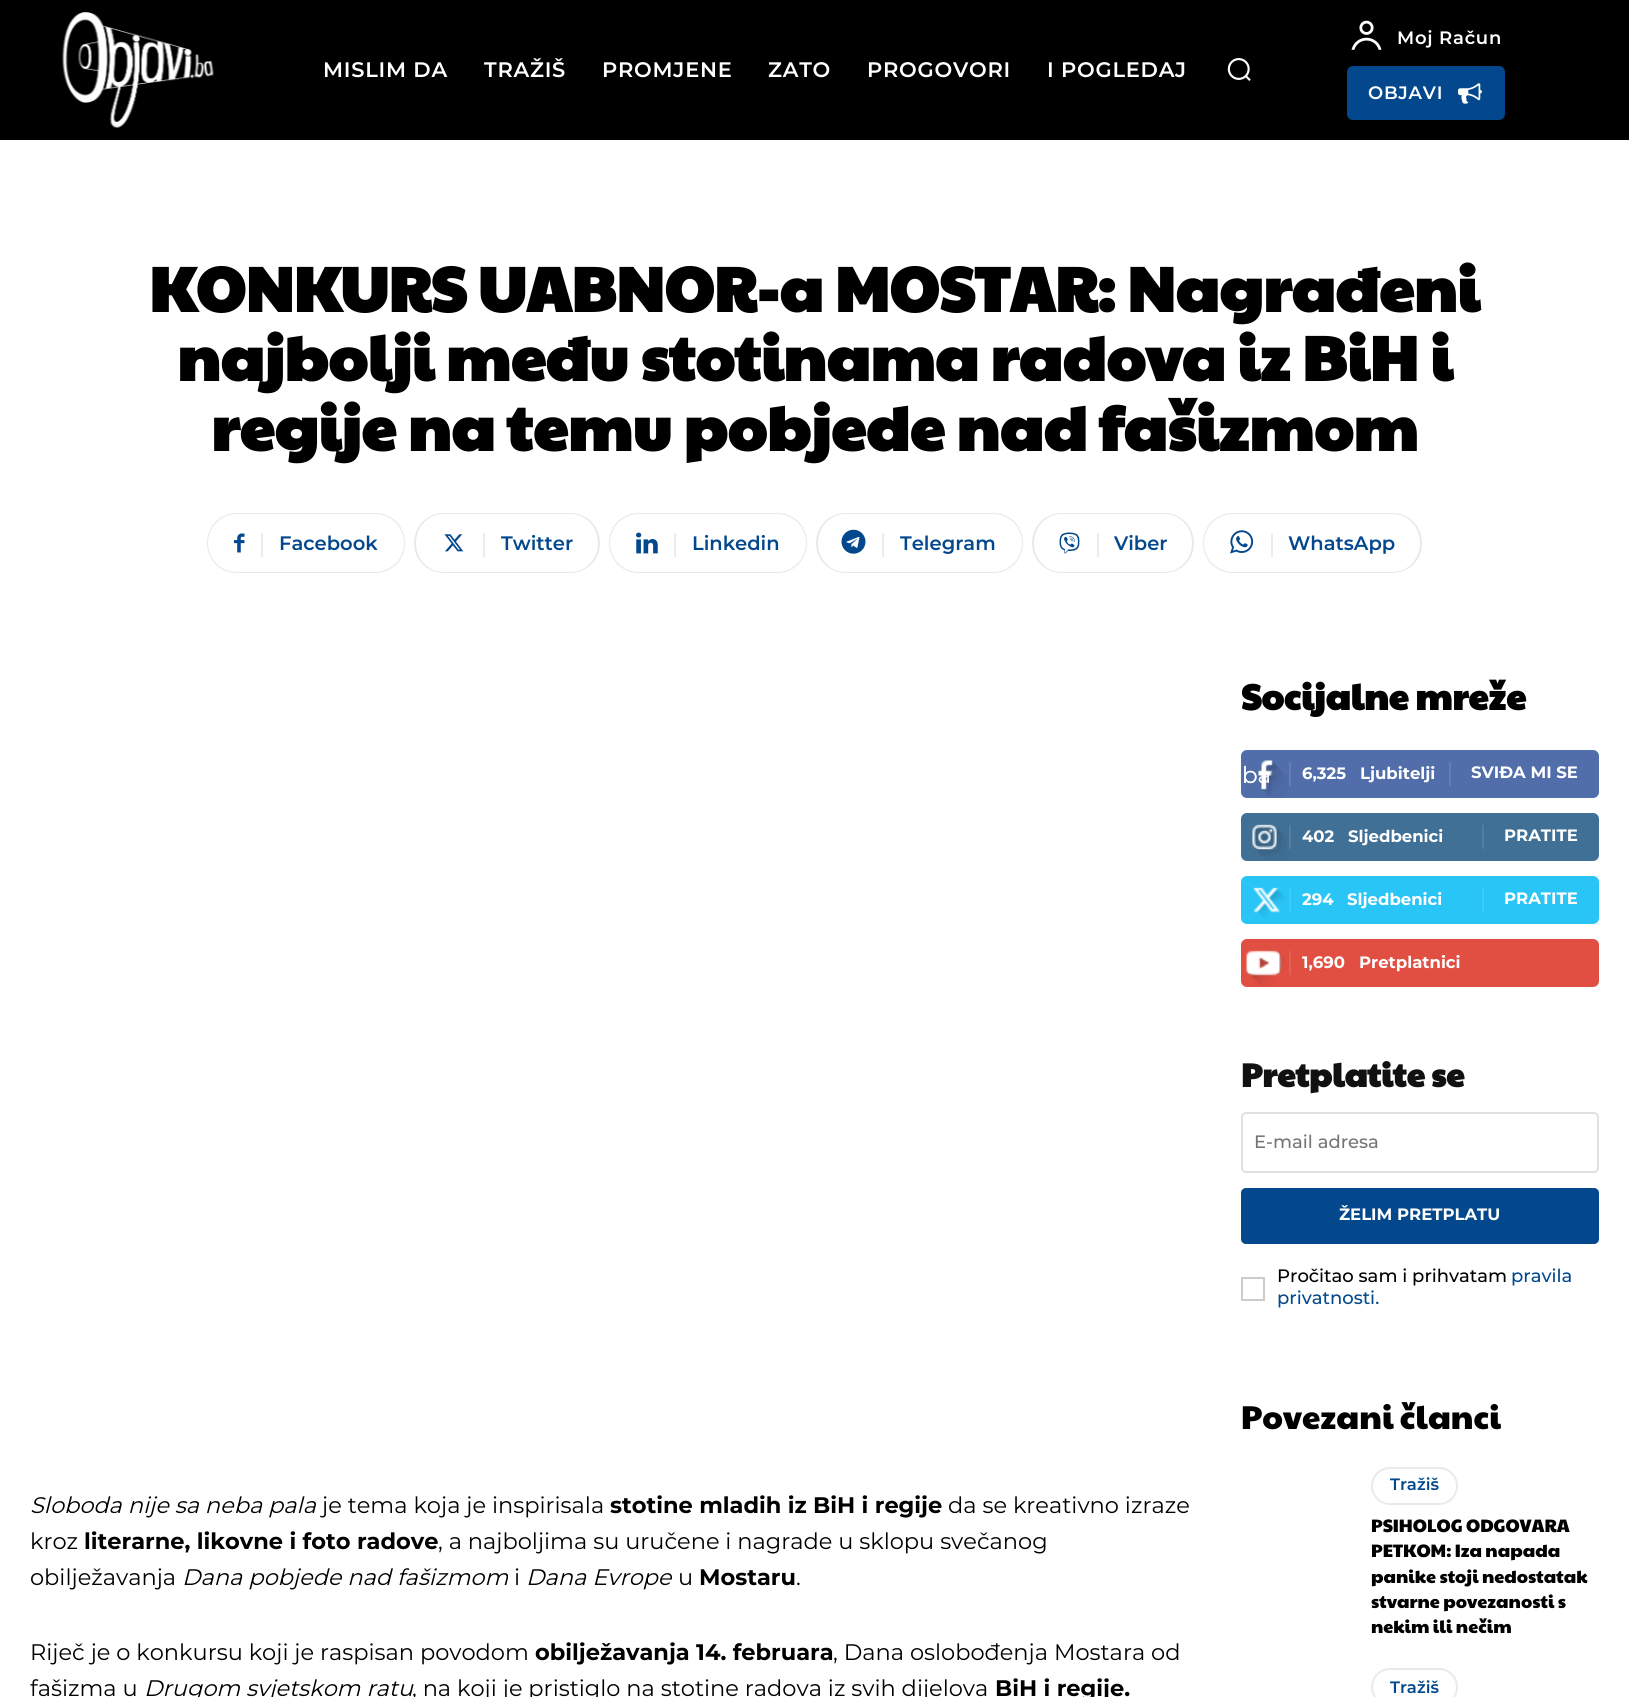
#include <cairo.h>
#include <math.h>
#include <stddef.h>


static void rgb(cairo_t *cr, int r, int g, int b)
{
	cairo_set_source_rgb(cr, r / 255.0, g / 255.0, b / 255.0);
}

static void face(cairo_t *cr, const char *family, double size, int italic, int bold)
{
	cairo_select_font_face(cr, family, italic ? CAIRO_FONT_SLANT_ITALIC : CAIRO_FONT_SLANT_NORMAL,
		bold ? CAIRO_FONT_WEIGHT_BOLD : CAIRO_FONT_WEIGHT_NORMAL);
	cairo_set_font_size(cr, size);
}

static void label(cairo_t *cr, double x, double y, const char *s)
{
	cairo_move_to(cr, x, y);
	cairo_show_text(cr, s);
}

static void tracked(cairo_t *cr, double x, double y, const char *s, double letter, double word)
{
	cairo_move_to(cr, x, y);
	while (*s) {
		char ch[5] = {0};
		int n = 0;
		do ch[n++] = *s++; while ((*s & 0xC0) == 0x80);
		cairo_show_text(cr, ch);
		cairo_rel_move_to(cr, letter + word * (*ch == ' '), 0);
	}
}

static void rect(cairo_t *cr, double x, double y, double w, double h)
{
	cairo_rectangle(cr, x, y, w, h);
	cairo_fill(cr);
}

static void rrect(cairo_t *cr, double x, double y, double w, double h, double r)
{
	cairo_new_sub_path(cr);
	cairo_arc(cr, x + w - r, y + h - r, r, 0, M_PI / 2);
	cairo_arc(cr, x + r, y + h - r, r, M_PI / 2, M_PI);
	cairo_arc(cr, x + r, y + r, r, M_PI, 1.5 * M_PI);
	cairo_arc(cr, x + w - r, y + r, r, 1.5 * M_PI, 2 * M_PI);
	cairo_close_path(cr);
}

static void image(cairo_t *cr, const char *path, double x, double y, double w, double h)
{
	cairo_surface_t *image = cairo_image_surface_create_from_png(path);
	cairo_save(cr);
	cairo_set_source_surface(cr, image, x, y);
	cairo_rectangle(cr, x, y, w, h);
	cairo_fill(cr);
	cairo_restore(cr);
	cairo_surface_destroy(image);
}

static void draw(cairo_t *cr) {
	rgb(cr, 255, 255, 255);
	cairo_paint(cr);
	rgb(cr, 0, 0, 0);
	rect(cr, 0, 0, 1629, 140);
	image(cr, "image0.png", 62, 12, 152, 116);
	face(cr, "Montserrat SemiBold", 21, 0, 0);
	rgb(cr, 255, 255, 255);
	tracked(cr, 323, 77, "MISLIM DA", 0.75, 0);
	tracked(cr, 484, 77, "TRAŽIŠ", 0.75, 0);
	tracked(cr, 602, 77, "PROMJENE", 0.75, 0);
	tracked(cr, 768, 77, "ZATO", 0.75, 0);
	tracked(cr, 867, 77, "PROGOVORI", 0.75, 0);
	tracked(cr, 1047, 77, "I POGLEDAJ", 0.75, 0);
	image(cr, "image1.png", 1227, 58, 24, 23);
	image(cr, "image2.png", 1351, 20, 31, 30);
	face(cr, "Montserrat SemiBold", 18, 0, 0);
	tracked(cr, 1397, 44, "Moj Račun", 0.75, 0);
	rgb(cr, 3, 72, 140);
	rrect(cr, 1347, 66, 158, 54, 6);
	cairo_fill(cr);
	rgb(cr, 255, 255, 255);
	tracked(cr, 1368, 99, "OBJAVI", 0.75, 0);
	image(cr, "image3.png", 1458, 83, 24, 21);
	face(cr, "Paytone One", 63, 0, 1);
	rgb(cr, 0, 0, 0);
	label(cr, 149, 312, "KONKURS UABNOR-a MOSTAR: Nagrađeni");
	label(cr, 177, 381, "najbolji među stotinama radova iz BiH i");
	label(cr, 211, 451, "regije na temu pobjede nad fašizmom");
	rgb(cr, 233, 233, 233);
	cairo_set_fill_rule(cr, CAIRO_FILL_RULE_EVEN_ODD);
	cairo_new_path(cr);
	cairo_move_to(cr, 261, 513);
	cairo_line_to(cr, 375, 513);
	cairo_curve_to(cr, 392, 513, 405, 526, 405, 543);
	cairo_curve_to(cr, 405, 560, 392, 573, 375, 573);
	cairo_line_to(cr, 261, 573);
	cairo_close_path(cr);
	cairo_move_to(cr, 261, 514);
	cairo_line_to(cr, 375, 514);
	cairo_curve_to(cr, 391, 514, 404, 527, 404, 543);
	cairo_curve_to(cr, 404, 559, 391, 572, 375, 572);
	cairo_line_to(cr, 261, 572);
	cairo_close_path(cr);
	cairo_fill(cr);
	cairo_new_path(cr);
	cairo_move_to(cr, 237, 513);
	cairo_line_to(cr, 270, 513);
	cairo_line_to(cr, 270, 573);
	cairo_line_to(cr, 237, 573);
	cairo_curve_to(cr, 220, 573, 207, 560, 207, 543);
	cairo_curve_to(cr, 207, 526, 220, 513, 237, 513);
	cairo_close_path(cr);
	cairo_move_to(cr, 237, 514);
	cairo_line_to(cr, 270, 514);
	cairo_line_to(cr, 270, 572);
	cairo_line_to(cr, 237, 572);
	cairo_curve_to(cr, 221, 572, 208, 559, 208, 543);
	cairo_curve_to(cr, 208, 527, 221, 514, 237, 514);
	cairo_close_path(cr);
	cairo_fill(cr);
	image(cr, "image4.png", 234, 533, 11, 20);
	rgb(cr, 235, 235, 235);
	rect(cr, 261, 533, 2, 24);
	face(cr, "Montserrat SemiBold", 19.5, 0, 0);
	rgb(cr, 3, 72, 140);
	label(cr, 279, 550, "Facebook");
	rgb(cr, 233, 233, 233);
	cairo_new_path(cr);
	cairo_move_to(cr, 483, 513);
	cairo_line_to(cr, 570, 513);
	cairo_curve_to(cr, 587, 513, 600, 526, 600, 543);
	cairo_curve_to(cr, 600, 560, 587, 573, 570, 573);
	cairo_line_to(cr, 483, 573);
	cairo_close_path(cr);
	cairo_move_to(cr, 483, 514);
	cairo_line_to(cr, 570, 514);
	cairo_curve_to(cr, 586, 514, 598, 527, 598, 543);
	cairo_curve_to(cr, 598, 559, 586, 572, 570, 572);
	cairo_line_to(cr, 483, 572);
	cairo_close_path(cr);
	cairo_fill(cr);
	cairo_new_path(cr);
	cairo_move_to(cr, 444, 513);
	cairo_line_to(cr, 492, 513);
	cairo_line_to(cr, 492, 573);
	cairo_line_to(cr, 444, 573);
	cairo_curve_to(cr, 427, 573, 414, 560, 414, 543);
	cairo_curve_to(cr, 414, 526, 427, 513, 444, 513);
	cairo_close_path(cr);
	cairo_move_to(cr, 444, 514);
	cairo_line_to(cr, 492, 514);
	cairo_line_to(cr, 492, 572);
	cairo_line_to(cr, 444, 572);
	cairo_curve_to(cr, 428, 572, 416, 559, 416, 543);
	cairo_curve_to(cr, 416, 527, 428, 514, 444, 514);
	cairo_close_path(cr);
	cairo_fill(cr);
	image(cr, "image5.png", 444, 534, 20, 18);
	rgb(cr, 235, 235, 235);
	rect(cr, 483, 533, 2, 24);
	rgb(cr, 3, 72, 140);
	label(cr, 501, 550, "Twitter");
	rgb(cr, 233, 233, 233);
	cairo_new_path(cr);
	cairo_move_to(cr, 674, 513);
	cairo_line_to(cr, 777, 513);
	cairo_curve_to(cr, 794, 513, 807, 526, 807, 543);
	cairo_curve_to(cr, 807, 560, 794, 573, 777, 573);
	cairo_line_to(cr, 674, 573);
	cairo_close_path(cr);
	cairo_move_to(cr, 674, 514);
	cairo_line_to(cr, 777, 514);
	cairo_curve_to(cr, 793, 514, 806, 527, 806, 543);
	cairo_curve_to(cr, 806, 559, 793, 572, 777, 572);
	cairo_line_to(cr, 674, 572);
	cairo_close_path(cr);
	cairo_fill(cr);
	cairo_new_path(cr);
	cairo_move_to(cr, 639, 513);
	cairo_line_to(cr, 682, 513);
	cairo_line_to(cr, 682, 573);
	cairo_line_to(cr, 639, 573);
	cairo_curve_to(cr, 622, 573, 609, 560, 609, 543);
	cairo_curve_to(cr, 609, 526, 622, 513, 639, 513);
	cairo_close_path(cr);
	cairo_move_to(cr, 639, 514);
	cairo_line_to(cr, 682, 514);
	cairo_line_to(cr, 682, 572);
	cairo_line_to(cr, 639, 572);
	cairo_curve_to(cr, 623, 572, 610, 559, 610, 543);
	cairo_curve_to(cr, 610, 527, 623, 514, 639, 514);
	cairo_close_path(cr);
	cairo_fill(cr);
	image(cr, "image6.png", 636, 532, 22, 22);
	rgb(cr, 235, 235, 235);
	rect(cr, 674, 533, 2, 24);
	rgb(cr, 3, 72, 140);
	label(cr, 692, 550, "Linkedin");
	rgb(cr, 233, 233, 233);
	cairo_new_path(cr);
	cairo_move_to(cr, 882, 513);
	cairo_line_to(cr, 993, 513);
	cairo_curve_to(cr, 1010, 513, 1023, 526, 1023, 543);
	cairo_curve_to(cr, 1023, 560, 1010, 573, 993, 573);
	cairo_line_to(cr, 882, 573);
	cairo_close_path(cr);
	cairo_move_to(cr, 882, 514);
	cairo_line_to(cr, 993, 514);
	cairo_curve_to(cr, 1009, 514, 1022, 527, 1022, 543);
	cairo_curve_to(cr, 1022, 559, 1009, 572, 993, 572);
	cairo_line_to(cr, 882, 572);
	cairo_close_path(cr);
	cairo_fill(cr);
	cairo_new_path(cr);
	cairo_move_to(cr, 846, 513);
	cairo_line_to(cr, 891, 513);
	cairo_line_to(cr, 891, 573);
	cairo_line_to(cr, 846, 573);
	cairo_curve_to(cr, 829, 573, 816, 560, 816, 543);
	cairo_curve_to(cr, 816, 526, 829, 513, 846, 513);
	cairo_close_path(cr);
	cairo_move_to(cr, 846, 514);
	cairo_line_to(cr, 891, 514);
	cairo_line_to(cr, 891, 572);
	cairo_line_to(cr, 846, 572);
	cairo_curve_to(cr, 830, 572, 818, 559, 818, 543);
	cairo_curve_to(cr, 818, 527, 830, 514, 846, 514);
	cairo_close_path(cr);
	cairo_fill(cr);
	image(cr, "image7.png", 841, 529, 25, 25);
	rgb(cr, 235, 235, 235);
	rect(cr, 882, 533, 2, 24);
	rgb(cr, 3, 72, 140);
	label(cr, 900, 550, "Telegram");
	rgb(cr, 233, 233, 233);
	cairo_new_path(cr);
	cairo_move_to(cr, 1096, 513);
	cairo_line_to(cr, 1164, 513);
	cairo_curve_to(cr, 1181, 513, 1194, 526, 1194, 543);
	cairo_curve_to(cr, 1194, 560, 1181, 573, 1164, 573);
	cairo_line_to(cr, 1096, 573);
	cairo_close_path(cr);
	cairo_move_to(cr, 1096, 514);
	cairo_line_to(cr, 1164, 514);
	cairo_curve_to(cr, 1180, 514, 1192, 527, 1192, 543);
	cairo_curve_to(cr, 1192, 559, 1180, 572, 1164, 572);
	cairo_line_to(cr, 1096, 572);
	cairo_close_path(cr);
	cairo_fill(cr);
	cairo_new_path(cr);
	cairo_move_to(cr, 1062, 513);
	cairo_line_to(cr, 1106, 513);
	cairo_line_to(cr, 1106, 573);
	cairo_line_to(cr, 1062, 573);
	cairo_curve_to(cr, 1045, 573, 1032, 560, 1032, 543);
	cairo_curve_to(cr, 1032, 526, 1045, 513, 1062, 513);
	cairo_close_path(cr);
	cairo_move_to(cr, 1062, 514);
	cairo_line_to(cr, 1106, 514);
	cairo_line_to(cr, 1106, 572);
	cairo_line_to(cr, 1062, 572);
	cairo_curve_to(cr, 1046, 572, 1034, 559, 1034, 543);
	cairo_curve_to(cr, 1034, 527, 1046, 514, 1062, 514);
	cairo_close_path(cr);
	cairo_fill(cr);
	image(cr, "image8.png", 1059, 532, 21, 22);
	rgb(cr, 235, 235, 235);
	rect(cr, 1097, 533, 2, 24);
	rgb(cr, 3, 72, 140);
	label(cr, 1114, 550, "Viber");
	rgb(cr, 233, 233, 233);
	cairo_new_path(cr);
	cairo_move_to(cr, 1270, 513);
	cairo_line_to(cr, 1392, 513);
	cairo_curve_to(cr, 1409, 513, 1422, 526, 1422, 543);
	cairo_curve_to(cr, 1422, 560, 1409, 573, 1392, 573);
	cairo_line_to(cr, 1270, 573);
	cairo_close_path(cr);
	cairo_move_to(cr, 1270, 514);
	cairo_line_to(cr, 1392, 514);
	cairo_curve_to(cr, 1408, 514, 1420, 527, 1420, 543);
	cairo_curve_to(cr, 1420, 559, 1408, 572, 1392, 572);
	cairo_line_to(cr, 1270, 572);
	cairo_close_path(cr);
	cairo_fill(cr);
	cairo_new_path(cr);
	cairo_move_to(cr, 1233, 513);
	cairo_line_to(cr, 1280, 513);
	cairo_line_to(cr, 1280, 573);
	cairo_line_to(cr, 1233, 573);
	cairo_curve_to(cr, 1216, 573, 1203, 560, 1203, 543);
	cairo_curve_to(cr, 1203, 526, 1216, 513, 1233, 513);
	cairo_close_path(cr);
	cairo_move_to(cr, 1233, 514);
	cairo_line_to(cr, 1280, 514);
	cairo_line_to(cr, 1280, 572);
	cairo_line_to(cr, 1233, 572);
	cairo_curve_to(cr, 1217, 572, 1204, 559, 1204, 543);
	cairo_curve_to(cr, 1204, 527, 1217, 514, 1233, 514);
	cairo_close_path(cr);
	cairo_fill(cr);
	image(cr, "image9.png", 1230, 530, 24, 24);
	rgb(cr, 235, 235, 235);
	rect(cr, 1271, 533, 2, 24);
	rgb(cr, 3, 72, 140);
	label(cr, 1288, 550, "WhatsApp");
	face(cr, "Montserrat", 22.5, 1, 0);
	rgb(cr, 0, 0, 0);
	label(cr, 30, 1513, "Sloboda nije sa neba pala");
	face(cr, "Montserrat", 22.5, 0, 0);
	label(cr, 322, 1513, "je tema koja je inspirisala");
	face(cr, "Montserrat", 22.5, 0, 1);
	label(cr, 610, 1513, "stotine mladih iz BiH i regije");
	face(cr, "Montserrat", 22.5, 0, 0);
	label(cr, 948, 1513, "da se kreativno izraze");
	label(cr, 30, 1549, "kroz");
	face(cr, "Montserrat", 22.5, 0, 1);
	label(cr, 84, 1549, "literarne, likovne i foto radove");
	face(cr, "Montserrat", 22.5, 0, 0);
	label(cr, 438, 1549, ", a najboljima su uručene i nagrade u sklopu svečanog");
	label(cr, 30, 1585, "obilježavanja");
	face(cr, "Montserrat", 22.5, 1, 0);
	label(cr, 182, 1585, "Dana pobjede nad fašizmom");
	face(cr, "Montserrat", 22.5, 0, 0);
	label(cr, 514, 1585, "i");
	face(cr, "Montserrat", 22.5, 1, 0);
	label(cr, 526, 1585, "Dana Evrope");
	face(cr, "Montserrat", 22.5, 0, 0);
	label(cr, 678, 1585, "u");
	face(cr, "Montserrat", 22.5, 0, 1);
	label(cr, 699, 1585, "Mostaru");
	face(cr, "Montserrat", 22.5, 0, 0);
	label(cr, 796, 1585, ".");
	label(cr, 30, 1660, "Riječ je o konkursu koji je raspisan povodom");
	face(cr, "Montserrat", 22.5, 0, 1);
	label(cr, 535, 1660, "obilježavanja 14. februara");
	face(cr, "Montserrat", 22.5, 0, 0);
	label(cr, 833, 1660, ", Dana oslobođenja Mostara od");
	label(cr, 30, 1696, "fašizma u");
	face(cr, "Montserrat", 22.5, 1, 0);
	label(cr, 144, 1696, "Drugom svjetskom ratu");
	face(cr, "Montserrat", 22.5, 0, 0);
	label(cr, 412, 1696, ", na koji je pristiglo na stotine radova iz svih dijelova");
	face(cr, "Montserrat", 22.5, 0, 1);
	label(cr, 995, 1696, "BiH i regije.");
	face(cr, "Paytone One", 36, 0, 1);
	label(cr, 1241, 710, "Socijalne mreže");
	rgb(cr, 81, 110, 171);
	rrect(cr, 1241, 750, 358, 48, 6);
	cairo_fill(cr);
	image(cr, "image10.png", 1258, 760, 30, 38);
	rgb(cr, 98, 125, 179);
	rect(cr, 1289, 762, 2, 24);
	face(cr, "Montserrat", 16.5, 0, 1);
	rgb(cr, 255, 255, 255);
	label(cr, 1302, 779, "6,325");
	label(cr, 1360, 779, "Ljubitelji");
	rgb(cr, 98, 125, 179);
	rect(cr, 1449, 762, 2, 24);
	rgb(cr, 255, 255, 255);
	label(cr, 1471, 778, "SVIĐA MI SE");
	rgb(cr, 65, 112, 150);
	rrect(cr, 1241, 813, 358, 48, 6);
	cairo_fill(cr);
	image(cr, "image11.png", 1252, 824, 35, 36);
	rgb(cr, 84, 126, 161);
	rect(cr, 1289, 825, 2, 24);
	rgb(cr, 255, 255, 255);
	label(cr, 1302, 842, "402");
	label(cr, 1348, 842, "Sljedbenici");
	rgb(cr, 84, 126, 161);
	rect(cr, 1482, 825, 2, 24);
	rgb(cr, 255, 255, 255);
	label(cr, 1504, 841, "PRATITE");
	rgb(cr, 41, 197, 246);
	rrect(cr, 1241, 876, 358, 48, 6);
	cairo_fill(cr);
	image(cr, "image12.png", 1252, 887, 34, 32);
	rgb(cr, 62, 203, 247);
	rect(cr, 1289, 888, 2, 24);
	rgb(cr, 255, 255, 255);
	label(cr, 1302, 905, "294");
	label(cr, 1347, 905, "Sljedbenici");
	rgb(cr, 62, 203, 247);
	rect(cr, 1482, 888, 2, 24);
	rgb(cr, 255, 255, 255);
	label(cr, 1504, 904, "PRATITE");
	rgb(cr, 225, 78, 66);
	rrect(cr, 1241, 939, 358, 48, 6);
	cairo_fill(cr);
	image(cr, "image13.png", 1246, 950, 41, 36);
	rgb(cr, 228, 96, 85);
	rect(cr, 1289, 951, 2, 24);
	rgb(cr, 255, 255, 255);
	label(cr, 1302, 968, "1,690");
	label(cr, 1359, 968, "Pretplatnici");
	face(cr, "Paytone One", 33, 0, 1);
	rgb(cr, 17, 17, 17);
	label(cr, 1241, 1087, "Pretplatite se");
	rrect(cr, 1242, 1113, 356, 59, 4);
	rgb(cr, 225, 225, 225);
	cairo_stroke(cr);
	face(cr, "Montserrat Medium", 18, 0, 0);
	rgb(cr, 117, 117, 117);
	label(cr, 1254, 1148, "E-mail adresa");
	rgb(cr, 3, 72, 140);
	rrect(cr, 1241, 1188, 358, 56, 5);
	cairo_fill(cr);
	face(cr, "Montserrat", 16.5, 0, 1);
	rgb(cr, 255, 255, 255);
	label(cr, 1339, 1220, "ŽELIM PRETPLATU");
	cairo_rectangle(cr, 1242, 1278, 22, 22);
	rgb(cr, 204, 204, 204);
	cairo_stroke(cr);
	face(cr, "Montserrat Medium", 18, 0, 0);
	rgb(cr, 0, 0, 0);
	label(cr, 1277, 1282, "Pročitao sam i prihvatam");
	rgb(cr, 3, 72, 140);
	label(cr, 1511, 1282, "pravila");
	label(cr, 1277, 1304, "privatnosti.");
	face(cr, "Paytone One", 33, 0, 0);
	rgb(cr, 0, 0, 0);
	label(cr, 1241, 1429, "Povezani članci");
	rrect(cr, 1372, 1468, 85, 36, 18);
	rgb(cr, 234, 234, 234);
	cairo_stroke(cr);
	face(cr, "Montserrat SemiBold", 16.5, 0, 0);
	rgb(cr, 3, 72, 140);
	label(cr, 1390, 1490, "Tražiš");
	face(cr, "Paytone One", 18, 0, 0);
	rgb(cr, 0, 0, 0);
	label(cr, 1371, 1532, "PSIHOLOG ODGOVARA");
	label(cr, 1371, 1557, "PETKOM: Iza napada");
	label(cr, 1371, 1583, "panike stoji nedostatak");
	label(cr, 1371, 1608, "stvarne povezanosti s");
	label(cr, 1371, 1633, "nekim ili nečim");
	rrect(cr, 1372, 1669, 85, 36, 18);
	rgb(cr, 234, 234, 234);
	cairo_stroke(cr);
	face(cr, "Montserrat SemiBold", 16.5, 0, 0);
	rgb(cr, 3, 72, 140);
	label(cr, 1390, 1693, "Tražiš");
	face(cr, "Montserrat", 23, 0, 0);
	rgb(cr, 255, 255, 255);
	label(cr, 1242, 783, "ba");
	label(cr, 1242, 783, "b");
}

int main(void) {
	cairo_surface_t *surface = cairo_image_surface_create(CAIRO_FORMAT_RGB24, 1629, 1697);
	cairo_t *cr = cairo_create(surface);
	cairo_font_options_t *options = cairo_font_options_create();
	cairo_font_options_set_hint_metrics(options, CAIRO_HINT_METRICS_OFF);
	cairo_font_options_set_hint_style(options, CAIRO_HINT_STYLE_NONE);
	cairo_set_font_options(cr, options);
	cairo_set_miter_limit(cr, 4);
	draw(cr);
	cairo_surface_write_to_png(surface, "render.png");
	cairo_font_options_destroy(options);
	cairo_destroy(cr);
	cairo_surface_destroy(surface);
	return 0;
}
